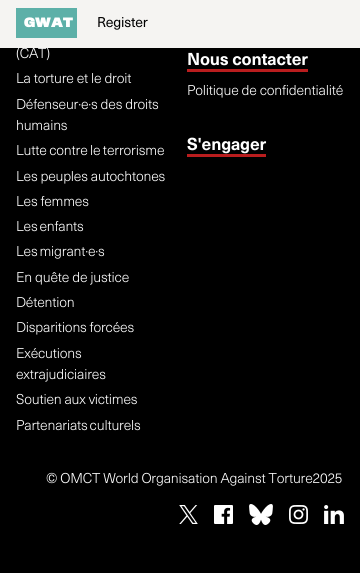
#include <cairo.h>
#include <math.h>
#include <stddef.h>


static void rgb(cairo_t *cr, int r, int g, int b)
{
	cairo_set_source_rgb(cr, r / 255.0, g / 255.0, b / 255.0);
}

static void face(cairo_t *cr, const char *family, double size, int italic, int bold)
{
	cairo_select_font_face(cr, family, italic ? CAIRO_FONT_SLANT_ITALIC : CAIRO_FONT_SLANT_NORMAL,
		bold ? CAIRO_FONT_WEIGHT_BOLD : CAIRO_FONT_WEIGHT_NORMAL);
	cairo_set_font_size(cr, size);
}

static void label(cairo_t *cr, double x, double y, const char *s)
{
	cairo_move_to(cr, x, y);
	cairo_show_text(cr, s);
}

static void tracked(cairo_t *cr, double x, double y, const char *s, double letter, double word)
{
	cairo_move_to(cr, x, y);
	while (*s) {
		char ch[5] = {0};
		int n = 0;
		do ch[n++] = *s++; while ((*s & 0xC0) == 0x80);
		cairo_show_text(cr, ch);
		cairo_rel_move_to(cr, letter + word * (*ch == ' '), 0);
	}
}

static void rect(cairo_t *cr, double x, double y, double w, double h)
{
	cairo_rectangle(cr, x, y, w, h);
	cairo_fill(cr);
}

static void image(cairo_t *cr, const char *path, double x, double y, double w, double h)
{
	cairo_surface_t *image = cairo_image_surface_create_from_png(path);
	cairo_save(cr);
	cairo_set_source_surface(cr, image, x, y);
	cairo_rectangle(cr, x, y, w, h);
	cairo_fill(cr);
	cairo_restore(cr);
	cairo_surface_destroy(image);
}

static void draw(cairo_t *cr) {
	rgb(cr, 0, 0, 0);
	cairo_paint(cr);
	face(cr, "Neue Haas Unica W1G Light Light", 14, 0, 0);
	rgb(cr, 255, 255, 255);
	tracked(cr, 16, 58, "(CAT)", -0.2, 0);
	rgb(cr, 245, 244, 242);
	rect(cr, 0, 0, 360, 48);
	rgb(cr, 93, 176, 168);
	rect(cr, 16, 8, 61, 30);
	face(cr, "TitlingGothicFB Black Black", 12, 0, 0);
	rgb(cr, 255, 255, 255);
	label(cr, 24, 27, "GWAT");
	face(cr, "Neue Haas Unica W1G", 14, 0, 0);
	rgb(cr, 0, 0, 0);
	tracked(cr, 97, 27, "Register", -0.2, 0);
	face(cr, "Neue Haas Unica W1G Light Light", 14, 0, 0);
	rgb(cr, 255, 255, 255);
	tracked(cr, 16, 83, "La torture et le droit", -0.2, 0);
	tracked(cr, 16, 109, "Défenseur·e·s des droits", -0.2, 0);
	tracked(cr, 16, 130, "humains", -0.2, 0);
	tracked(cr, 16, 155, "Lutte contre le terrorisme", -0.2, -0.5);
	tracked(cr, 16, 181, "Les peuples autochtones", -0.2, 0);
	tracked(cr, 16, 206, "Les femmes", -0.2, 0);
	tracked(cr, 16, 231, "Les enfants", -0.2, -1);
	tracked(cr, 16, 256, "Les migrant·e·s", -0.2, -1);
	tracked(cr, 16, 282, "En quête de justice", -0.2, 0);
	tracked(cr, 16, 307, "Détention", -0.2, 0);
	tracked(cr, 16, 332, "Disparitions forcées", -0.2, 0);
	tracked(cr, 16, 358, "Exécutions", -0.2, 0);
	tracked(cr, 16, 379, "extrajudiciaires", -0.2, 0);
	tracked(cr, 16, 404, "Soutien aux victimes", -0.2, 0);
	tracked(cr, 16, 430, "Partenariats culturels", -0.2, -1);
	face(cr, "Neue Haas Unica W1G", 17, 0, 1);
	tracked(cr, 187, 65, "Nous contacter", -0.2, 0);
	rgb(cr, 185, 29, 30);
	rect(cr, 187, 69, 121, 3);
	face(cr, "Neue Haas Unica W1G Light Light", 14, 0, 0);
	rgb(cr, 255, 255, 255);
	tracked(cr, 187, 95, "Politique de confidentialité", -0.2, 0);
	face(cr, "Neue Haas Unica W1G", 17, 0, 1);
	tracked(cr, 187, 150, "S'engager", -0.2, 0);
	rgb(cr, 185, 29, 30);
	rect(cr, 187, 154, 79, 3);
	face(cr, "Neue Haas Unica W1G Light Light", 14, 0, 0);
	rgb(cr, 255, 255, 255);
	tracked(cr, 46, 483, "© OMCT World Organisation Against Torture2025", -0.2, 0);
	image(cr, "image0.png", 179, 505, 19, 19);
	image(cr, "image1.png", 214, 505, 19, 19);
	image(cr, "image2.png", 249, 504, 24, 21);
	image(cr, "image3.png", 289, 505, 19, 19);
	image(cr, "image4.png", 324, 505, 20, 19);
}

int main(void) {
	cairo_surface_t *surface = cairo_image_surface_create(CAIRO_FORMAT_RGB24, 360, 573);
	cairo_t *cr = cairo_create(surface);
	cairo_font_options_t *options = cairo_font_options_create();
	cairo_font_options_set_hint_metrics(options, CAIRO_HINT_METRICS_OFF);
	cairo_font_options_set_hint_style(options, CAIRO_HINT_STYLE_NONE);
	cairo_set_font_options(cr, options);
	cairo_set_miter_limit(cr, 4);
	draw(cr);
	cairo_surface_write_to_png(surface, "render.png");
	cairo_font_options_destroy(options);
	cairo_destroy(cr);
	cairo_surface_destroy(surface);
	return 0;
}
